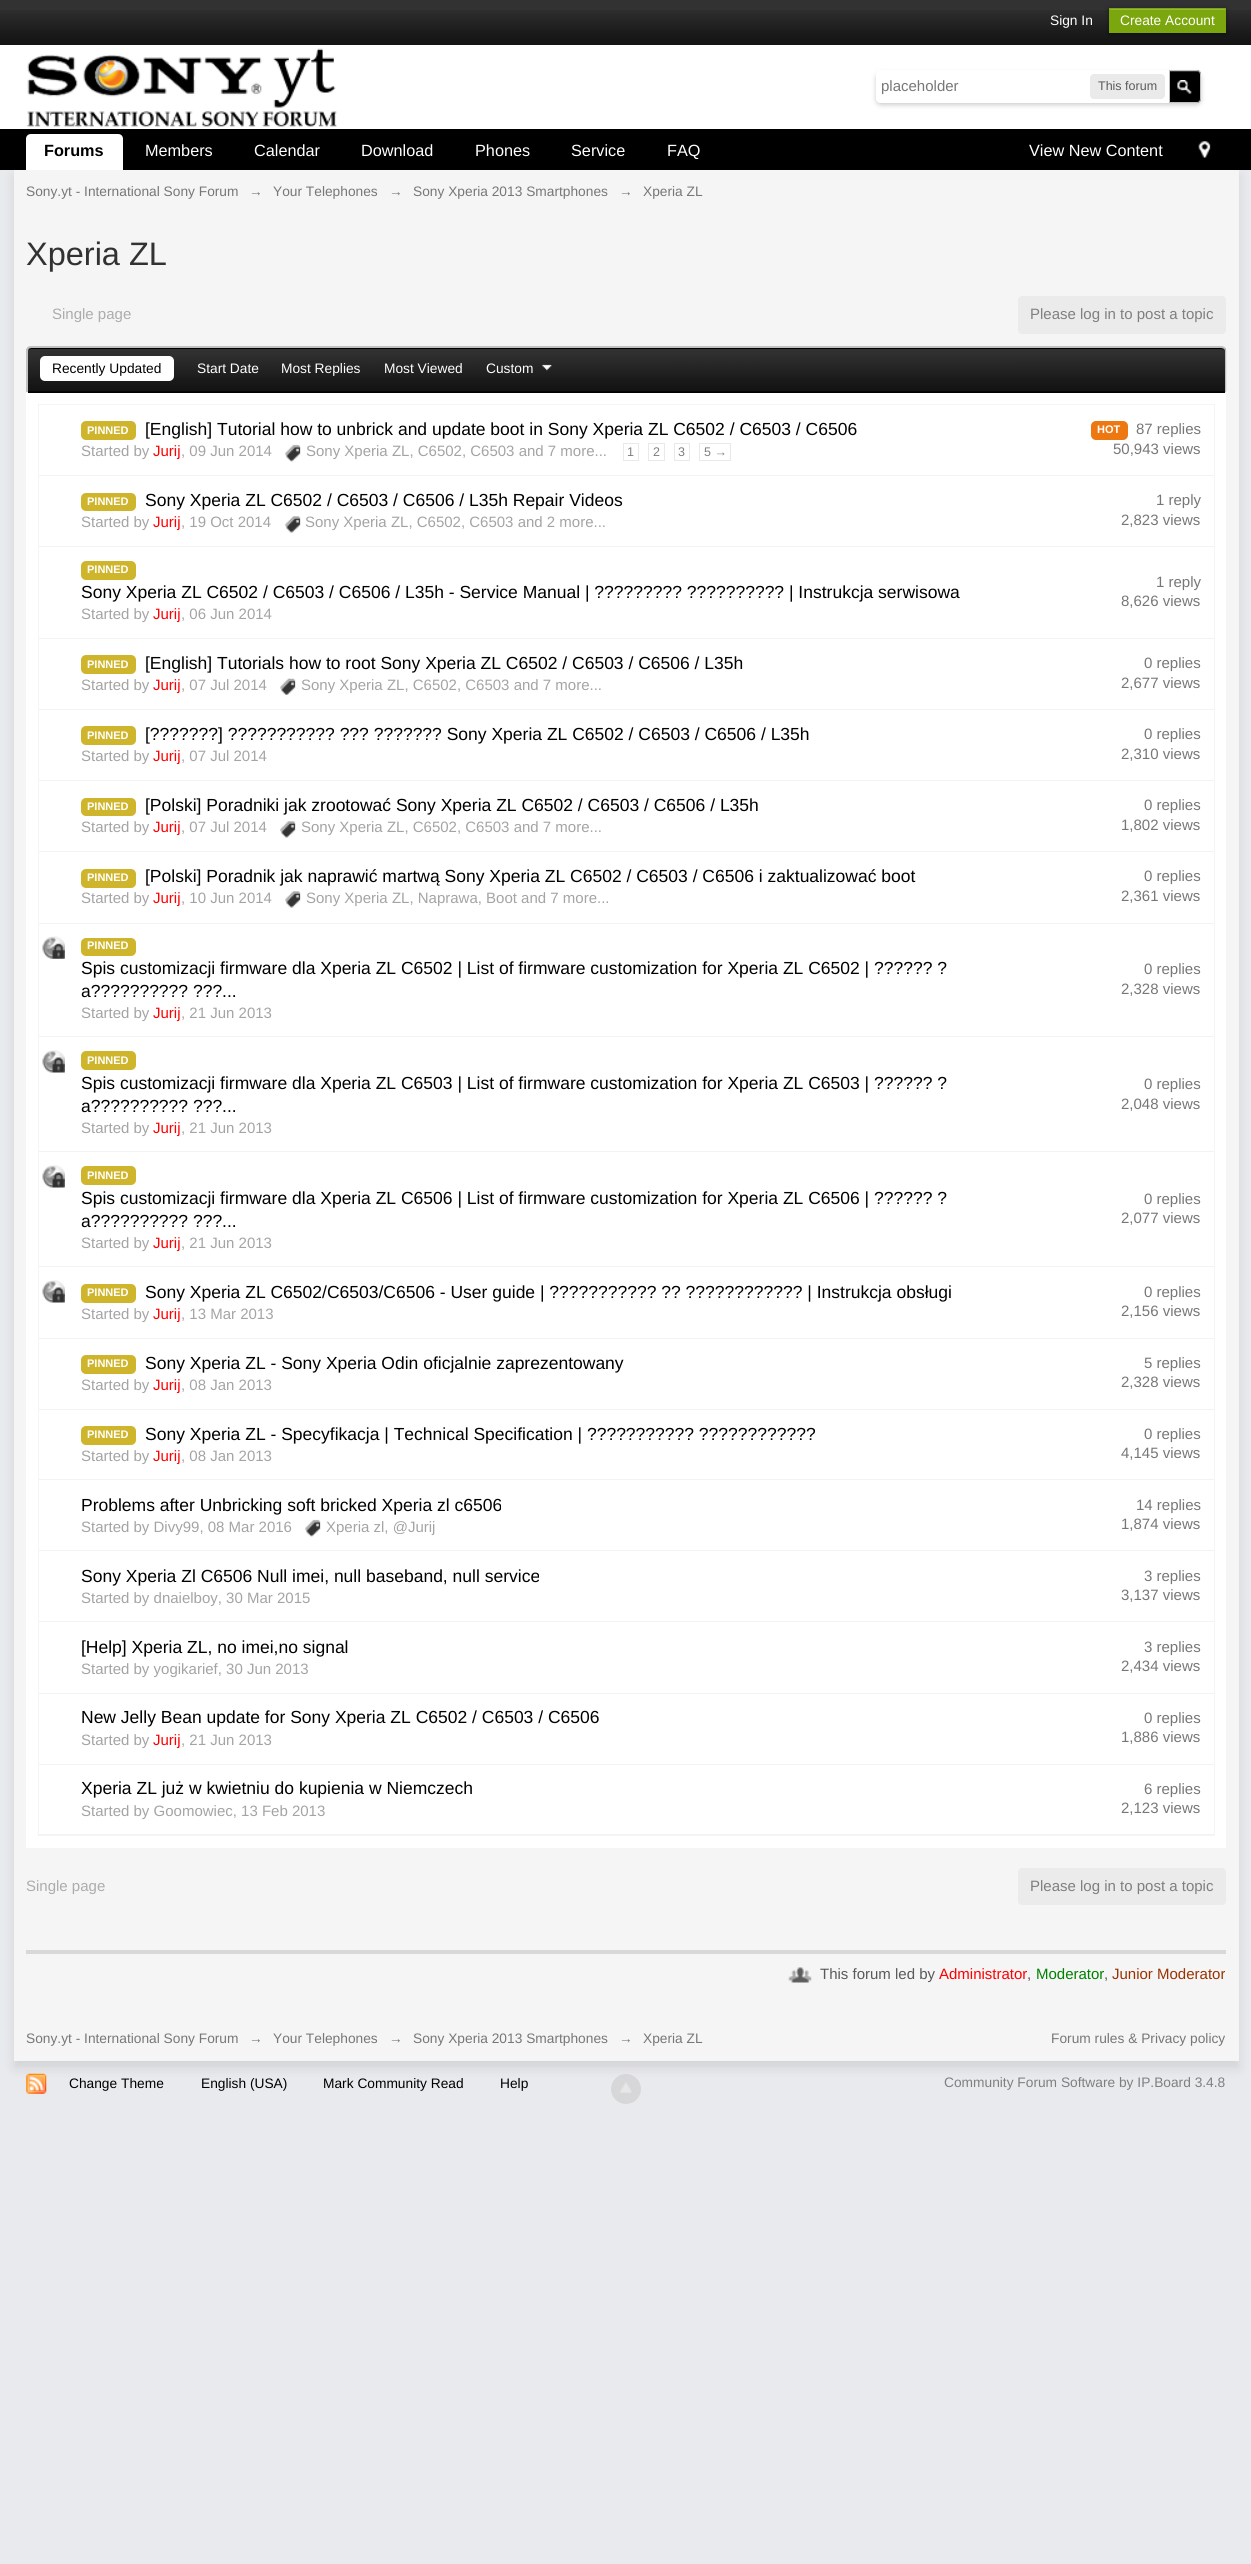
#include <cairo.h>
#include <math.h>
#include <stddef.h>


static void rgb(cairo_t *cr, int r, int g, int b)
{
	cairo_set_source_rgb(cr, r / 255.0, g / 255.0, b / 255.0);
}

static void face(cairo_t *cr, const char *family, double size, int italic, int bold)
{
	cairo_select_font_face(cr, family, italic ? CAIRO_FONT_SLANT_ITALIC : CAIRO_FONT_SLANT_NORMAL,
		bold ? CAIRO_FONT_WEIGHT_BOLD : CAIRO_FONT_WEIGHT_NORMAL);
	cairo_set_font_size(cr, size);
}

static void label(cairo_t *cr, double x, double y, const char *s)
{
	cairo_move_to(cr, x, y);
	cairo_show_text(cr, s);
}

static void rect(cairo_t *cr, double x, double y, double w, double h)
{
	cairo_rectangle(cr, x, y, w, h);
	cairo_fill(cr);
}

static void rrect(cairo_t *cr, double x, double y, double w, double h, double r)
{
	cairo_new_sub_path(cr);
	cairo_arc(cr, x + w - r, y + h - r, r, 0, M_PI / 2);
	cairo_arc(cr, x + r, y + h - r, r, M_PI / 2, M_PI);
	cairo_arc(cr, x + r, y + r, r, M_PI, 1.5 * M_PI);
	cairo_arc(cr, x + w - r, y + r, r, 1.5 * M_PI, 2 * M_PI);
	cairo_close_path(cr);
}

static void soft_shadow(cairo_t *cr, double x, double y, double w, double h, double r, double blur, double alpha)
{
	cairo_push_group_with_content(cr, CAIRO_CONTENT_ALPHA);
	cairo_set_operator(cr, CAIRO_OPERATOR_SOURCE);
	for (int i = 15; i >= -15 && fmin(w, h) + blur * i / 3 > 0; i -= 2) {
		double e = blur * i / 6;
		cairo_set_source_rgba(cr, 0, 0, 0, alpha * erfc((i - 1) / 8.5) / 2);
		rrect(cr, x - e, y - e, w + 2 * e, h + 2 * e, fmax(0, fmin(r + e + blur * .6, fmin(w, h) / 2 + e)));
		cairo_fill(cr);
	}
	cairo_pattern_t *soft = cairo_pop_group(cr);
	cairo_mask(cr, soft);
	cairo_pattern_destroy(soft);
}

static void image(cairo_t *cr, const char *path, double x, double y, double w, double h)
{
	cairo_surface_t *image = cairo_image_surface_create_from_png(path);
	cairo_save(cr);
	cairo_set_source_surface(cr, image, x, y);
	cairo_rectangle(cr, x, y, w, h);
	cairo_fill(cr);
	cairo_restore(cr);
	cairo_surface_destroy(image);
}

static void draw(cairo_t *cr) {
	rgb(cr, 233, 234, 237);
	cairo_paint(cr);
	rgb(cr, 50, 50, 50);
	rect(cr, 0, 0, 1251, 10);
	image(cr, "image0.png", 0, 10, 1251, 35);
	face(cr, "Liberation Sans", 13.75, 0, 0);
	rgb(cr, 255, 255, 255);
	label(cr, 1050, 25, "Sign In");
	rgb(cr, 0, 0, 0);
	soft_shadow(cr, 1109, 9, 117, 25, 0, 2.5, 0.4);
	rgb(cr, 123, 166, 13);
	rect(cr, 1109, 8, 117, 25);
	rgb(cr, 149, 184, 61);
	rect(cr, 1110, 9, 115, 1);
	rgb(cr, 255, 255, 255);
	label(cr, 1120, 25, "Create Account");
	rect(cr, 0, 45, 1251, 84);
	image(cr, "image1.png", 27, 48, 310, 79);
	rgb(cr, 0, 0, 0);
	soft_shadow(cr, 876, 73, 325, 32, 5, 2.5, 0.2);
	rgb(cr, 255, 255, 255);
	cairo_new_path(cr);
	cairo_move_to(cr, 880, 70);
	cairo_line_to(cr, 1196, 70);
	cairo_curve_to(cr, 1199, 70, 1201, 72, 1201, 75);
	cairo_line_to(cr, 1201, 98);
	cairo_curve_to(cr, 1201, 101, 1199, 103, 1196, 103);
	cairo_line_to(cr, 880, 103);
	cairo_curve_to(cr, 878, 103, 876, 101, 876, 99);
	cairo_line_to(cr, 876, 74);
	cairo_curve_to(cr, 876, 72, 878, 70, 880, 70);
	cairo_close_path(cr);
	cairo_fill(cr);
	face(cr, "Liberation Sans", 15, 0, 0);
	rgb(cr, 119, 119, 119);
	label(cr, 881, 91, "placeholder");
	rgb(cr, 234, 234, 234);
	rrect(cr, 1090, 74, 75, 25, 4);
	cairo_fill(cr);
	face(cr, "Liberation Sans", 12.5, 0, 0);
	rgb(cr, 90, 90, 90);
	label(cr, 1098, 90, "This forum");
	rgb(cr, 0, 0, 0);
	cairo_new_path(cr);
	cairo_move_to(cr, 1169, 70);
	cairo_line_to(cr, 1197, 70);
	cairo_curve_to(cr, 1199, 70, 1201, 72, 1201, 74);
	cairo_line_to(cr, 1201, 99);
	cairo_curve_to(cr, 1201, 101, 1199, 103, 1197, 103);
	cairo_line_to(cr, 1169, 103);
	cairo_close_path(cr);
	cairo_fill(cr);
	image(cr, "image2.png", 1177, 80, 15, 14);
	rgb(cr, 51, 51, 51);
	cairo_new_path(cr);
	cairo_move_to(cr, 1170, 72);
	cairo_line_to(cr, 1198, 72);
	cairo_curve_to(cr, 1199, 72, 1200, 74, 1200, 75);
	cairo_line_to(cr, 1200, 73.5);
	cairo_curve_to(cr, 1200, 72, 1199, 71, 1197.5, 71);
	cairo_line_to(cr, 1170, 71);
	cairo_close_path(cr);
	cairo_fill(cr);
	cairo_new_path(cr);
	cairo_move_to(cr, 1169.5, 70.5);
	cairo_line_to(cr, 1197, 70.5);
	cairo_curve_to(cr, 1199, 70.5, 1200.5, 72, 1200.5, 74);
	cairo_line_to(cr, 1200.5, 99);
	cairo_curve_to(cr, 1200.5, 101, 1199, 102.5, 1197, 102.5);
	cairo_line_to(cr, 1169.5, 102.5);
	cairo_close_path(cr);
	rgb(cr, 192, 192, 192);
	cairo_set_line_width(cr, 1);
	cairo_stroke(cr);
	rgb(cr, 0, 0, 0);
	rect(cr, 0, 129, 1251, 41);
	rgb(cr, 0, 0, 0);
	soft_shadow(cr, 14, 176, 1225, 1892, 0, 5.5, 0.1);
	rgb(cr, 255, 255, 255);
	cairo_new_path(cr);
	cairo_move_to(cr, 31, 134);
	cairo_line_to(cr, 118, 134);
	cairo_curve_to(cr, 121, 134, 123, 136, 123, 139);
	cairo_line_to(cr, 123, 170);
	cairo_line_to(cr, 26, 170);
	cairo_line_to(cr, 26, 139);
	cairo_curve_to(cr, 26, 136, 28, 134, 31, 134);
	cairo_close_path(cr);
	cairo_fill(cr);
	face(cr, "Liberation Sans", 16.25, 0, 1);
	rgb(cr, 0, 0, 0);
	label(cr, 44, 156, "Forums");
	face(cr, "Liberation Sans", 16.25, 0, 0);
	rgb(cr, 255, 255, 255);
	label(cr, 145, 156, "Members");
	label(cr, 254, 156, "Calendar");
	label(cr, 361, 156, "Download");
	label(cr, 475, 156, "Phones");
	label(cr, 571, 156, "Service");
	label(cr, 667, 156, "FAQ");
	label(cr, 1029, 156, "View New Content");
	image(cr, "image3.png", 1198, 141, 13, 17);
	rgb(cr, 245, 245, 245);
	rect(cr, 14, 170, 1225, 1891);
	face(cr, "Liberation Sans", 13.75, 0, 0);
	rgb(cr, 119, 119, 119);
	label(cr, 26, 196, "Sony.yt - International Sony Forum");
	label(cr, 249, 196, "→");
	label(cr, 273, 196, "Your Telephones");
	label(cr, 389, 196, "→");
	label(cr, 413, 196, "Sony Xperia 2013 Smartphones");
	label(cr, 619, 196, "→");
	label(cr, 643, 196, "Xperia ZL");
	face(cr, "Liberation Sans", 32.5, 0, 0);
	rgb(cr, 50, 50, 50);
	label(cr, 26, 265, "Xperia ZL");
	face(cr, "Liberation Sans", 15, 0, 0);
	rgb(cr, 172, 172, 172);
	label(cr, 52, 319, "Single page");
	rgb(cr, 235, 235, 235);
	rrect(cr, 1018, 296, 208, 38, 4);
	cairo_fill(cr);
	rgb(cr, 127, 127, 127);
	label(cr, 1030, 319, "Please log in to post a topic");
	rgb(cr, 0, 0, 0);
	rect(cr, 28, 391, 1197, 2);
	image(cr, "image4.png", 26, 347, 1201, 45);
	cairo_new_path(cr);
	cairo_move_to(cr, 31, 349);
	cairo_line_to(cr, 1221, 349);
	cairo_curve_to(cr, 1223, 349, 1225, 350, 1225, 352);
	cairo_curve_to(cr, 1225, 350, 1223, 348, 1221, 348);
	cairo_line_to(cr, 32, 348);
	cairo_curve_to(cr, 31, 348, 29, 349, 29, 350);
	cairo_close_path(cr);
	cairo_fill(cr);
	rgb(cr, 192, 192, 192);
	cairo_set_fill_rule(cr, CAIRO_FILL_RULE_EVEN_ODD);
	cairo_new_path(cr);
	cairo_move_to(cr, 31, 346);
	cairo_line_to(cr, 1221, 346);
	cairo_curve_to(cr, 1224, 346, 1226, 348, 1226, 351);
	cairo_line_to(cr, 1226, 392);
	cairo_line_to(cr, 26, 392);
	cairo_line_to(cr, 26, 351);
	cairo_curve_to(cr, 26, 348, 28, 346, 31, 346);
	cairo_close_path(cr);
	cairo_move_to(cr, 31, 348);
	cairo_line_to(cr, 1221, 348);
	cairo_curve_to(cr, 1223, 348, 1225, 349, 1225, 351);
	cairo_line_to(cr, 1225, 392);
	cairo_line_to(cr, 28, 392);
	cairo_line_to(cr, 28, 351);
	cairo_curve_to(cr, 28, 349, 29, 348, 31, 348);
	cairo_close_path(cr);
	cairo_fill(cr);
	rgb(cr, 255, 255, 255);
	rrect(cr, 40, 356, 134, 25, 5);
	cairo_fill(cr);
	face(cr, "Liberation Sans", 13.75, 0, 0);
	rgb(cr, 0, 0, 0);
	label(cr, 52, 373, "Recently Updated");
	rgb(cr, 255, 255, 255);
	label(cr, 197, 373, "Start Date");
	label(cr, 281, 373, "Most Replies");
	label(cr, 384, 373, "Most Viewed");
	label(cr, 486, 373, "Custom");
	image(cr, "image5.png", 542, 364, 10, 7);
	rect(cr, 26, 393, 1200, 1455);
	cairo_rectangle(cr, 38.5, 404.5, 1176, 1431);
	rgb(cr, 245, 245, 245);
	cairo_stroke(cr);
	rgb(cr, 207, 181, 43);
	rrect(cr, 81, 421, 55, 19, 5);
	cairo_fill(cr);
	face(cr, "Liberation Sans", 11, 0, 1);
	rgb(cr, 255, 255, 255);
	label(cr, 87, 434, "PINNED");
	face(cr, "Liberation Sans", 17.5, 0, 0);
	rgb(cr, 0, 0, 0);
	label(cr, 145, 435, "[English] Tutorial how to unbrick and update boot in Sony Xperia ZL C6502 / C6503 / C6506");
	face(cr, "Liberation Sans", 15, 0, 0);
	rgb(cr, 164, 164, 164);
	label(cr, 81, 456, "Started by");
	rgb(cr, 255, 0, 0);
	label(cr, 153, 456, "Jurij");
	rgb(cr, 164, 164, 164);
	label(cr, 181, 456, ", 09 Jun 2014");
	image(cr, "image6.png", 285, 444, 16, 18);
	label(cr, 306, 456, "Sony Xperia ZL, C6502, C6503 and 7 more...");
	cairo_rectangle(cr, 623.5, 443.5, 15, 17);
	rgb(cr, 233, 233, 233);
	cairo_stroke(cr);
	face(cr, "Liberation Sans", 12.5, 0, 0);
	rgb(cr, 127, 127, 127);
	label(cr, 627, 456, "1");
	cairo_rectangle(cr, 648.5, 443.5, 16, 17);
	rgb(cr, 233, 233, 233);
	cairo_stroke(cr);
	rgb(cr, 127, 127, 127);
	label(cr, 653, 456, "2");
	cairo_rectangle(cr, 674.5, 443.5, 15, 17);
	rgb(cr, 233, 233, 233);
	cairo_stroke(cr);
	rgb(cr, 127, 127, 127);
	label(cr, 678, 456, "3");
	cairo_rectangle(cr, 699.5, 443.5, 31, 17);
	rgb(cr, 233, 233, 233);
	cairo_stroke(cr);
	rgb(cr, 127, 127, 127);
	label(cr, 704, 456, "5 →");
	rgb(cr, 243, 243, 243);
	rect(cr, 38, 475, 1176, 1);
	rgb(cr, 237, 119, 16);
	rrect(cr, 1091, 421, 37, 19, 5);
	cairo_fill(cr);
	face(cr, "Liberation Sans", 11, 0, 1);
	rgb(cr, 255, 255, 255);
	label(cr, 1097, 433, "HOT");
	face(cr, "Liberation Sans", 15, 0, 0);
	rgb(cr, 119, 119, 119);
	label(cr, 1136, 434, "87 replies");
	label(cr, 1113, 454, "50,943 views");
	rgb(cr, 207, 181, 43);
	rrect(cr, 81, 493, 55, 18, 5);
	cairo_fill(cr);
	face(cr, "Liberation Sans", 11, 0, 1);
	rgb(cr, 255, 255, 255);
	label(cr, 87, 505, "PINNED");
	face(cr, "Liberation Sans", 17.5, 0, 0);
	rgb(cr, 0, 0, 0);
	label(cr, 145, 506, "Sony Xperia ZL C6502 / C6503 / C6506 / L35h Repair Videos");
	face(cr, "Liberation Sans", 15, 0, 0);
	rgb(cr, 164, 164, 164);
	label(cr, 81, 527, "Started by");
	rgb(cr, 255, 0, 0);
	label(cr, 153, 527, "Jurij");
	rgb(cr, 164, 164, 164);
	label(cr, 181, 527, ", 19 Oct 2014");
	image(cr, "image7.png", 285, 516, 16, 17);
	label(cr, 305, 527, "Sony Xperia ZL, C6502, C6503 and 2 more...");
	rgb(cr, 243, 243, 243);
	rect(cr, 38, 546, 1176, 1);
	rgb(cr, 119, 119, 119);
	label(cr, 1156, 505, "1 reply");
	label(cr, 1121, 525, "2,823 views");
	rgb(cr, 207, 181, 43);
	rrect(cr, 81, 561, 55, 19, 5);
	cairo_fill(cr);
	face(cr, "Liberation Sans", 11, 0, 1);
	rgb(cr, 255, 255, 255);
	label(cr, 87, 573, "PINNED");
	face(cr, "Liberation Sans", 17.5, 0, 0);
	rgb(cr, 0, 0, 0);
	label(cr, 81, 598, "Sony Xperia ZL C6502 / C6503 / C6506 / L35h - Service Manual | ?\077?\077?\077?\077? ?\077?\077?\077?\077?\077 | Instrukcja serwisowa");
	face(cr, "Liberation Sans", 15, 0, 0);
	rgb(cr, 164, 164, 164);
	label(cr, 81, 619, "Started by");
	rgb(cr, 255, 0, 0);
	label(cr, 153, 619, "Jurij");
	rgb(cr, 164, 164, 164);
	label(cr, 181, 619, ", 06 Jun 2014");
	rgb(cr, 243, 243, 243);
	rect(cr, 38, 638, 1176, 1);
	rgb(cr, 119, 119, 119);
	label(cr, 1156, 587, "1 reply");
	label(cr, 1121, 606, "8,626 views");
	rgb(cr, 207, 181, 43);
	rrect(cr, 81, 655, 55, 19, 5);
	cairo_fill(cr);
	face(cr, "Liberation Sans", 11, 0, 1);
	rgb(cr, 255, 255, 255);
	label(cr, 87, 668, "PINNED");
	face(cr, "Liberation Sans", 17.5, 0, 0);
	rgb(cr, 0, 0, 0);
	label(cr, 145, 669, "[English] Tutorials how to root Sony Xperia ZL C6502 / C6503 / C6506 / L35h");
	face(cr, "Liberation Sans", 15, 0, 0);
	rgb(cr, 164, 164, 164);
	label(cr, 81, 690, "Started by");
	rgb(cr, 255, 0, 0);
	label(cr, 153, 690, "Jurij");
	rgb(cr, 164, 164, 164);
	label(cr, 181, 690, ", 07 Jul 2014");
	image(cr, "image8.png", 280, 678, 16, 17);
	label(cr, 301, 690, "Sony Xperia ZL, C6502, C6503 and 7 more...");
	rgb(cr, 243, 243, 243);
	rect(cr, 38, 709, 1176, 1);
	rgb(cr, 119, 119, 119);
	label(cr, 1144, 668, "0 replies");
	label(cr, 1121, 688, "2,677 views");
	rgb(cr, 207, 181, 43);
	rrect(cr, 81, 726, 55, 19, 5);
	cairo_fill(cr);
	face(cr, "Liberation Sans", 11, 0, 1);
	rgb(cr, 255, 255, 255);
	label(cr, 87, 739, "PINNED");
	face(cr, "Liberation Sans", 17.5, 0, 0);
	rgb(cr, 0, 0, 0);
	label(cr, 145, 740, "[?\077?\077?\077?] ?\077?\077?\077?\077?\077? ?\077? ?\077?\077?\077? Sony Xperia ZL C6502 / C6503 / C6506 / L35h");
	face(cr, "Liberation Sans", 15, 0, 0);
	rgb(cr, 164, 164, 164);
	label(cr, 81, 761, "Started by");
	rgb(cr, 255, 0, 0);
	label(cr, 153, 761, "Jurij");
	rgb(cr, 164, 164, 164);
	label(cr, 181, 761, ", 07 Jul 2014");
	rgb(cr, 243, 243, 243);
	rect(cr, 38, 780, 1176, 1);
	rgb(cr, 119, 119, 119);
	label(cr, 1144, 739, "0 replies");
	label(cr, 1121, 759, "2,310 views");
	rgb(cr, 207, 181, 43);
	rrect(cr, 81, 798, 55, 18, 5);
	cairo_fill(cr);
	face(cr, "Liberation Sans", 11, 0, 1);
	rgb(cr, 255, 255, 255);
	label(cr, 87, 810, "PINNED");
	face(cr, "Liberation Sans", 17.5, 0, 0);
	rgb(cr, 0, 0, 0);
	label(cr, 145, 811, "[Polski] Poradniki jak zrootować Sony Xperia ZL C6502 / C6503 / C6506 / L35h");
	face(cr, "Liberation Sans", 15, 0, 0);
	rgb(cr, 164, 164, 164);
	label(cr, 81, 832, "Started by");
	rgb(cr, 255, 0, 0);
	label(cr, 153, 832, "Jurij");
	rgb(cr, 164, 164, 164);
	label(cr, 181, 832, ", 07 Jul 2014");
	image(cr, "image7.png", 280, 821, 16, 17);
	label(cr, 301, 832, "Sony Xperia ZL, C6502, C6503 and 7 more...");
	rgb(cr, 243, 243, 243);
	rect(cr, 38, 851, 1176, 1);
	rgb(cr, 119, 119, 119);
	label(cr, 1144, 810, "0 replies");
	label(cr, 1121, 830, "1,802 views");
	rgb(cr, 207, 181, 43);
	rrect(cr, 81, 869, 55, 19, 5);
	cairo_fill(cr);
	face(cr, "Liberation Sans", 11, 0, 1);
	rgb(cr, 255, 255, 255);
	label(cr, 87, 881, "PINNED");
	face(cr, "Liberation Sans", 17.5, 0, 0);
	rgb(cr, 0, 0, 0);
	label(cr, 145, 882, "[Polski] Poradnik jak naprawić martwą Sony Xperia ZL C6502 / C6503 / C6506 i zaktualizować boot");
	face(cr, "Liberation Sans", 15, 0, 0);
	rgb(cr, 164, 164, 164);
	label(cr, 81, 903, "Started by");
	rgb(cr, 255, 0, 0);
	label(cr, 153, 903, "Jurij");
	rgb(cr, 164, 164, 164);
	label(cr, 181, 903, ", 10 Jun 2014");
	image(cr, "image7.png", 285, 891, 16, 17);
	label(cr, 306, 903, "Sony Xperia ZL, Naprawa, Boot and 7 more...");
	rgb(cr, 243, 243, 243);
	rect(cr, 38, 923, 1176, 1);
	rgb(cr, 119, 119, 119);
	label(cr, 1144, 881, "0 replies");
	label(cr, 1121, 901, "2,361 views");
	image(cr, "image9.png", 42, 936, 23, 23);
	rgb(cr, 207, 181, 43);
	rrect(cr, 81, 938, 55, 18, 5);
	cairo_fill(cr);
	face(cr, "Liberation Sans", 11, 0, 1);
	rgb(cr, 255, 255, 255);
	label(cr, 87, 949, "PINNED");
	face(cr, "Liberation Sans", 17.5, 0, 0);
	rgb(cr, 0, 0, 0);
	label(cr, 81, 974, "Spis customizacji firmware dla Xperia ZL C6502 | List of firmware customization for Xperia ZL C6502 | ?\077?\077?\077 ?");
	label(cr, 81, 997, "a?\077?\077?\077?\077?\077 ?\077?...");
	face(cr, "Liberation Sans", 15, 0, 0);
	rgb(cr, 164, 164, 164);
	label(cr, 81, 1018, "Started by");
	rgb(cr, 255, 0, 0);
	label(cr, 153, 1018, "Jurij");
	rgb(cr, 164, 164, 164);
	label(cr, 181, 1018, ", 21 Jun 2013");
	rgb(cr, 243, 243, 243);
	rect(cr, 38, 1036, 1176, 1);
	rgb(cr, 119, 119, 119);
	label(cr, 1144, 974, "0 replies");
	label(cr, 1121, 994, "2,328 views");
	image(cr, "image10.png", 42, 1050, 23, 23);
	rgb(cr, 207, 181, 43);
	rrect(cr, 81, 1051, 55, 19, 5);
	cairo_fill(cr);
	face(cr, "Liberation Sans", 11, 0, 1);
	rgb(cr, 255, 255, 255);
	label(cr, 87, 1064, "PINNED");
	face(cr, "Liberation Sans", 17.5, 0, 0);
	rgb(cr, 0, 0, 0);
	label(cr, 81, 1089, "Spis customizacji firmware dla Xperia ZL C6503 | List of firmware customization for Xperia ZL C6503 | ?\077?\077?\077 ?");
	label(cr, 81, 1112, "a?\077?\077?\077?\077?\077 ?\077?...");
	face(cr, "Liberation Sans", 15, 0, 0);
	rgb(cr, 164, 164, 164);
	label(cr, 81, 1133, "Started by");
	rgb(cr, 255, 0, 0);
	label(cr, 153, 1133, "Jurij");
	rgb(cr, 164, 164, 164);
	label(cr, 181, 1133, ", 21 Jun 2013");
	rgb(cr, 243, 243, 243);
	rect(cr, 38, 1151, 1176, 1);
	rgb(cr, 119, 119, 119);
	label(cr, 1144, 1089, "0 replies");
	label(cr, 1121, 1109, "2,048 views");
	image(cr, "image11.png", 42, 1165, 23, 23);
	rgb(cr, 207, 181, 43);
	rrect(cr, 81, 1166, 55, 19, 5);
	cairo_fill(cr);
	face(cr, "Liberation Sans", 11, 0, 1);
	rgb(cr, 255, 255, 255);
	label(cr, 87, 1179, "PINNED");
	face(cr, "Liberation Sans", 17.5, 0, 0);
	rgb(cr, 0, 0, 0);
	label(cr, 81, 1204, "Spis customizacji firmware dla Xperia ZL C6506 | List of firmware customization for Xperia ZL C6506 | ?\077?\077?\077 ?");
	label(cr, 81, 1227, "a?\077?\077?\077?\077?\077 ?\077?...");
	face(cr, "Liberation Sans", 15, 0, 0);
	rgb(cr, 164, 164, 164);
	label(cr, 81, 1248, "Started by");
	rgb(cr, 255, 0, 0);
	label(cr, 153, 1248, "Jurij");
	rgb(cr, 164, 164, 164);
	label(cr, 181, 1248, ", 21 Jun 2013");
	rgb(cr, 243, 243, 243);
	rect(cr, 38, 1266, 1176, 1);
	rgb(cr, 119, 119, 119);
	label(cr, 1144, 1204, "0 replies");
	label(cr, 1121, 1223, "2,077 views");
	image(cr, "image10.png", 42, 1280, 23, 23);
	rgb(cr, 207, 181, 43);
	rrect(cr, 81, 1284, 55, 19, 5);
	cairo_fill(cr);
	face(cr, "Liberation Sans", 11, 0, 1);
	rgb(cr, 255, 255, 255);
	label(cr, 87, 1296, "PINNED");
	face(cr, "Liberation Sans", 17.5, 0, 0);
	rgb(cr, 0, 0, 0);
	label(cr, 145, 1298, "Sony Xperia ZL C6502/C6503/C6506 - User guide | ?\077?\077?\077?\077?\077? ?\077 ?\077?\077?\077?\077?\077?\077 | Instrukcja obsługi");
	face(cr, "Liberation Sans", 15, 0, 0);
	rgb(cr, 164, 164, 164);
	label(cr, 81, 1319, "Started by");
	rgb(cr, 255, 0, 0);
	label(cr, 153, 1319, "Jurij");
	rgb(cr, 164, 164, 164);
	label(cr, 181, 1319, ", 13 Mar 2013");
	rgb(cr, 243, 243, 243);
	rect(cr, 38, 1338, 1176, 1);
	rgb(cr, 119, 119, 119);
	label(cr, 1144, 1297, "0 replies");
	label(cr, 1121, 1316, "2,156 views");
	rgb(cr, 207, 181, 43);
	rrect(cr, 81, 1355, 55, 19, 5);
	cairo_fill(cr);
	face(cr, "Liberation Sans", 11, 0, 1);
	rgb(cr, 255, 255, 255);
	label(cr, 87, 1367, "PINNED");
	face(cr, "Liberation Sans", 17.5, 0, 0);
	rgb(cr, 0, 0, 0);
	label(cr, 145, 1369, "Sony Xperia ZL - Sony Xperia Odin oficjalnie zaprezentowany");
	face(cr, "Liberation Sans", 15, 0, 0);
	rgb(cr, 164, 164, 164);
	label(cr, 81, 1390, "Started by");
	rgb(cr, 255, 0, 0);
	label(cr, 153, 1390, "Jurij");
	rgb(cr, 164, 164, 164);
	label(cr, 181, 1390, ", 08 Jan 2013");
	rgb(cr, 243, 243, 243);
	rect(cr, 38, 1409, 1176, 1);
	rgb(cr, 119, 119, 119);
	label(cr, 1144, 1368, "5 replies");
	label(cr, 1121, 1387, "2,328 views");
	rgb(cr, 207, 181, 43);
	rrect(cr, 81, 1426, 55, 19, 5);
	cairo_fill(cr);
	face(cr, "Liberation Sans", 11, 0, 1);
	rgb(cr, 255, 255, 255);
	label(cr, 87, 1438, "PINNED");
	face(cr, "Liberation Sans", 17.5, 0, 0);
	rgb(cr, 0, 0, 0);
	label(cr, 145, 1440, "Sony Xperia ZL - Specyfikacja | Technical Specification | ?\077?\077?\077?\077?\077? ?\077?\077?\077?\077?\077?\077");
	face(cr, "Liberation Sans", 15, 0, 0);
	rgb(cr, 164, 164, 164);
	label(cr, 81, 1461, "Started by");
	rgb(cr, 255, 0, 0);
	label(cr, 153, 1461, "Jurij");
	rgb(cr, 164, 164, 164);
	label(cr, 181, 1461, ", 08 Jan 2013");
	rgb(cr, 243, 243, 243);
	rect(cr, 38, 1479, 1176, 1);
	rgb(cr, 119, 119, 119);
	label(cr, 1144, 1439, "0 replies");
	label(cr, 1121, 1458, "4,145 views");
	face(cr, "Liberation Sans", 17.5, 0, 0);
	rgb(cr, 0, 0, 0);
	label(cr, 81, 1511, "Problems after Unbricking soft bricked Xperia zl c6506");
	face(cr, "Liberation Sans", 15, 0, 0);
	rgb(cr, 164, 164, 164);
	label(cr, 81, 1532, "Started by Divy99, 08 Mar 2016");
	image(cr, "image12.png", 305, 1519, 16, 18);
	label(cr, 326, 1532, "Xperia zl, @Jurij");
	rgb(cr, 243, 243, 243);
	rect(cr, 38, 1550, 1176, 1);
	rgb(cr, 119, 119, 119);
	label(cr, 1136, 1510, "14 replies");
	label(cr, 1121, 1529, "1,874 views");
	face(cr, "Liberation Sans", 17.5, 0, 0);
	rgb(cr, 0, 0, 0);
	label(cr, 81, 1582, "Sony Xperia Zl C6506 Null imei, null baseband, null service");
	face(cr, "Liberation Sans", 15, 0, 0);
	rgb(cr, 164, 164, 164);
	label(cr, 81, 1603, "Started by dnaielboy, 30 Mar 2015");
	rgb(cr, 243, 243, 243);
	rect(cr, 38, 1621, 1176, 1);
	rgb(cr, 119, 119, 119);
	label(cr, 1144, 1581, "3 replies");
	label(cr, 1121, 1600, "3,137 views");
	face(cr, "Liberation Sans", 17.5, 0, 0);
	rgb(cr, 0, 0, 0);
	label(cr, 81, 1653, "[Help] Xperia ZL, no imei,no signal");
	face(cr, "Liberation Sans", 15, 0, 0);
	rgb(cr, 164, 164, 164);
	label(cr, 81, 1674, "Started by yogikarief, 30 Jun 2013");
	rgb(cr, 243, 243, 243);
	rect(cr, 38, 1693, 1176, 1);
	rgb(cr, 119, 119, 119);
	label(cr, 1144, 1652, "3 replies");
	label(cr, 1121, 1671, "2,434 views");
	face(cr, "Liberation Sans", 17.5, 0, 0);
	rgb(cr, 0, 0, 0);
	label(cr, 81, 1723, "New Jelly Bean update for Sony Xperia ZL C6502 / C6503 / C6506");
	face(cr, "Liberation Sans", 15, 0, 0);
	rgb(cr, 164, 164, 164);
	label(cr, 81, 1745, "Started by");
	rgb(cr, 255, 0, 0);
	label(cr, 153, 1745, "Jurij");
	rgb(cr, 164, 164, 164);
	label(cr, 181, 1745, ", 21 Jun 2013");
	rgb(cr, 243, 243, 243);
	rect(cr, 38, 1764, 1176, 1);
	rgb(cr, 119, 119, 119);
	label(cr, 1144, 1723, "0 replies");
	label(cr, 1121, 1742, "1,886 views");
	face(cr, "Liberation Sans", 17.5, 0, 0);
	rgb(cr, 0, 0, 0);
	label(cr, 81, 1794, "Xperia ZL już w kwietniu do kupienia w Niemczech");
	face(cr, "Liberation Sans", 15, 0, 0);
	rgb(cr, 164, 164, 164);
	label(cr, 81, 1816, "Started by Goomowiec, 13 Feb 2013");
	rgb(cr, 243, 243, 243);
	rect(cr, 38, 1834, 1176, 1);
	rgb(cr, 119, 119, 119);
	label(cr, 1144, 1794, "6 replies");
	label(cr, 1121, 1813, "2,123 views");
	rgb(cr, 172, 172, 172);
	label(cr, 26, 1891, "Single page");
	rgb(cr, 235, 235, 235);
	rrect(cr, 1018, 1868, 208, 37, 4);
	cairo_fill(cr);
	rgb(cr, 127, 127, 127);
	label(cr, 1030, 1891, "Please log in to post a topic");
	rgb(cr, 216, 216, 216);
	rect(cr, 26, 1950, 1200, 4);
	image(cr, "image13.png", 788, 1967, 24, 16);
	rgb(cr, 90, 90, 90);
	label(cr, 820, 1979, "This forum led by");
	rgb(cr, 255, 0, 0);
	label(cr, 939, 1979, "Administrator");
	rgb(cr, 90, 90, 90);
	label(cr, 1027, 1979, ",");
	rgb(cr, 0, 128, 0);
	label(cr, 1036, 1979, "Moderator");
	rgb(cr, 90, 90, 90);
	label(cr, 1104, 1979, ",");
	rgb(cr, 153, 51, 0);
	label(cr, 1112, 1979, "Junior Moderator");
	face(cr, "Liberation Sans", 13.75, 0, 0);
	rgb(cr, 119, 119, 119);
	label(cr, 26, 2043, "Sony.yt - International Sony Forum");
	label(cr, 249, 2043, "→");
	label(cr, 273, 2043, "Your Telephones");
	label(cr, 389, 2043, "→");
	label(cr, 413, 2043, "Sony Xperia 2013 Smartphones");
	label(cr, 619, 2043, "→");
	label(cr, 643, 2043, "Xperia ZL");
	label(cr, 1051, 2043, "Forum rules & Privacy policy");
	image(cr, "image14.png", 26, 2073, 21, 21);
	rgb(cr, 0, 0, 0);
	label(cr, 69, 2088, "Change Theme");
	label(cr, 201, 2088, "English (USA)");
	label(cr, 323, 2088, "Mark Community Read");
	label(cr, 500, 2088, "Help");
	cairo_set_source_rgba(cr, 0.741, 0.741, 0.741, 0.4);
	cairo_new_path(cr);
	cairo_arc(cr, 626, 2089, 15, 0, 2 * M_PI);
	cairo_fill(cr);
	image(cr, "image15.png", 620, 2082, 12, 11);
	rgb(cr, 127, 127, 127);
	label(cr, 944, 2087, "Community Forum Software by IP.Board 3.4.8");
}

int main(void) {
	cairo_surface_t *surface = cairo_image_surface_create(CAIRO_FORMAT_RGB24, 1251, 2564);
	cairo_t *cr = cairo_create(surface);
	cairo_font_options_t *options = cairo_font_options_create();
	cairo_font_options_set_hint_metrics(options, CAIRO_HINT_METRICS_OFF);
	cairo_font_options_set_hint_style(options, CAIRO_HINT_STYLE_NONE);
	cairo_set_font_options(cr, options);
	cairo_set_miter_limit(cr, 4);
	draw(cr);
	cairo_surface_write_to_png(surface, "render.png");
	cairo_font_options_destroy(options);
	cairo_destroy(cr);
	cairo_surface_destroy(surface);
	return 0;
}
